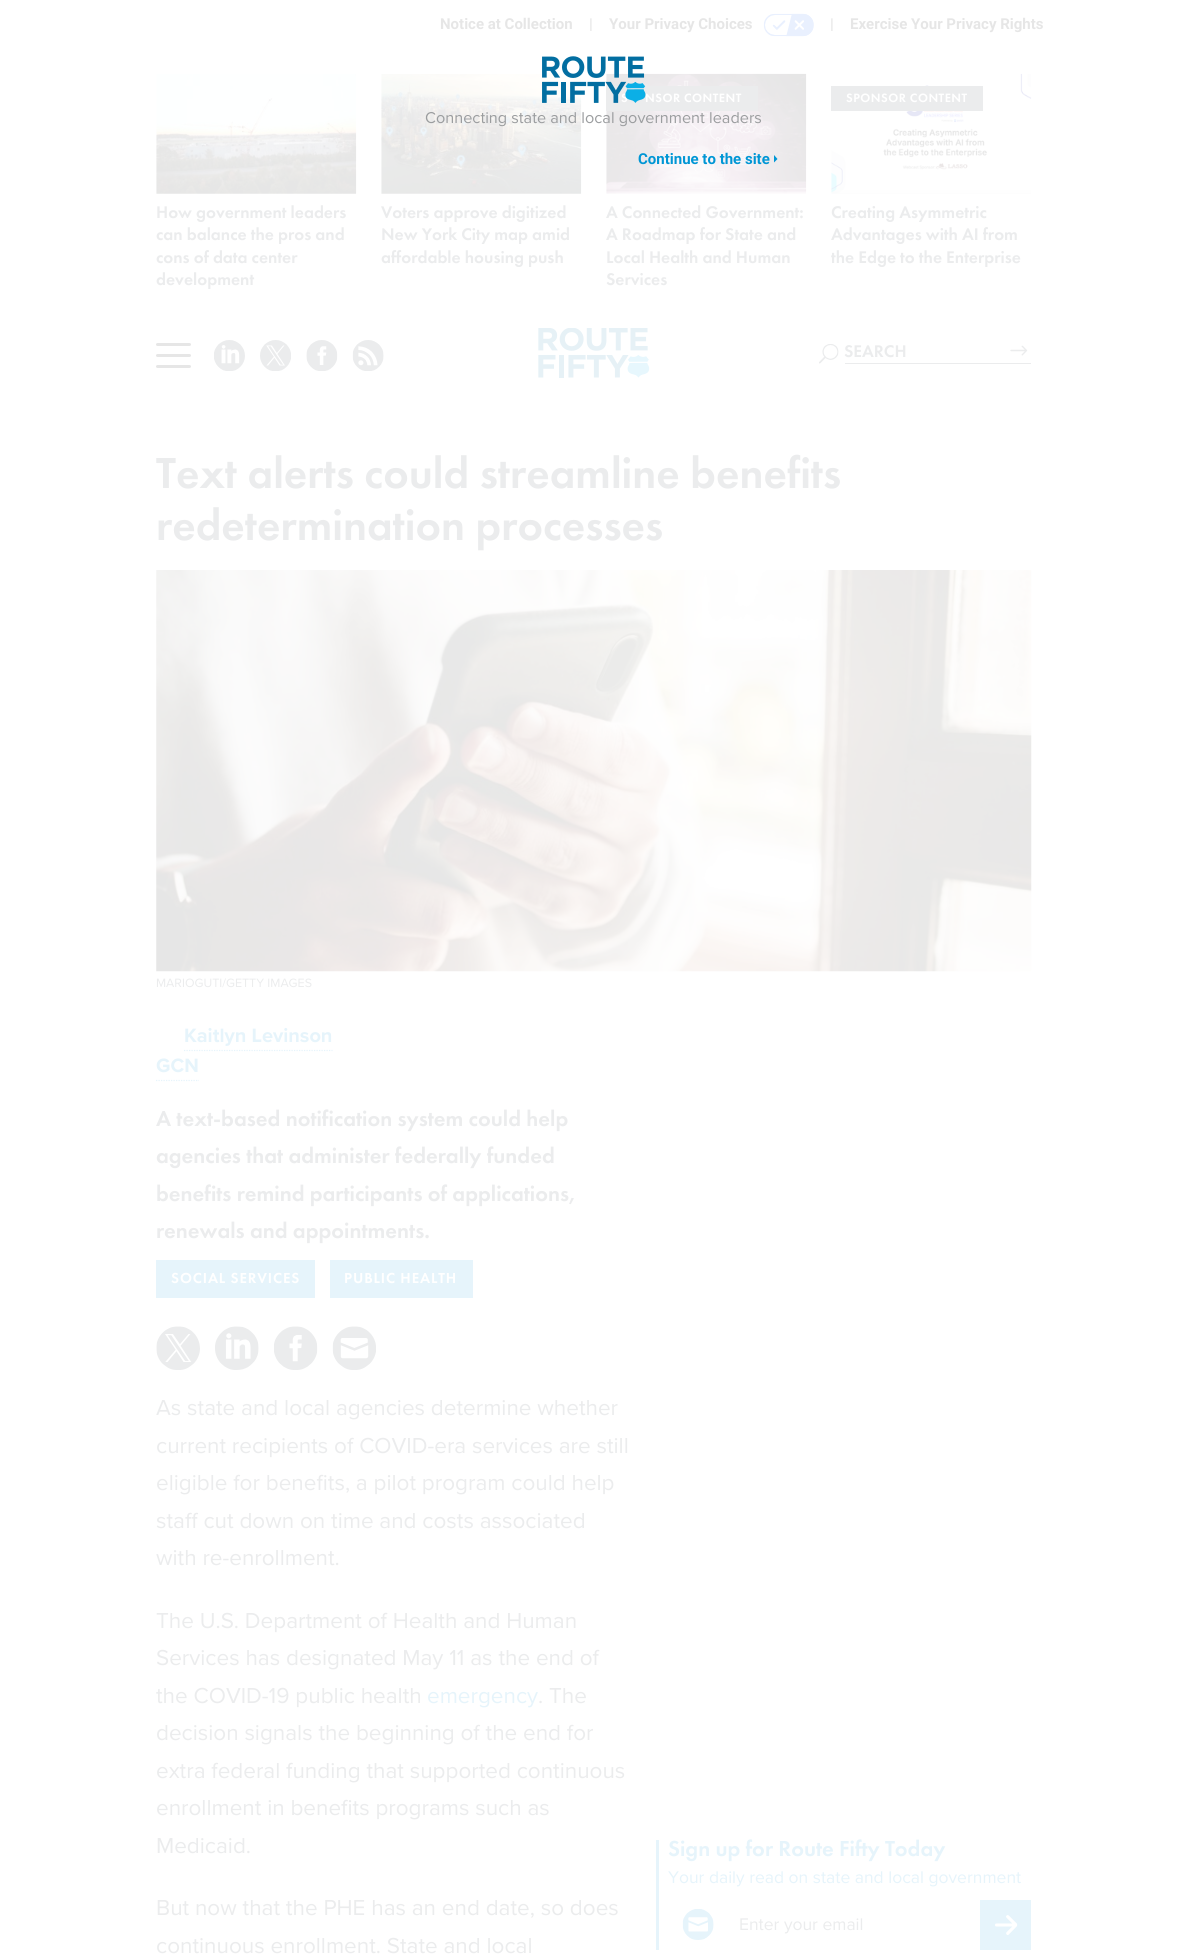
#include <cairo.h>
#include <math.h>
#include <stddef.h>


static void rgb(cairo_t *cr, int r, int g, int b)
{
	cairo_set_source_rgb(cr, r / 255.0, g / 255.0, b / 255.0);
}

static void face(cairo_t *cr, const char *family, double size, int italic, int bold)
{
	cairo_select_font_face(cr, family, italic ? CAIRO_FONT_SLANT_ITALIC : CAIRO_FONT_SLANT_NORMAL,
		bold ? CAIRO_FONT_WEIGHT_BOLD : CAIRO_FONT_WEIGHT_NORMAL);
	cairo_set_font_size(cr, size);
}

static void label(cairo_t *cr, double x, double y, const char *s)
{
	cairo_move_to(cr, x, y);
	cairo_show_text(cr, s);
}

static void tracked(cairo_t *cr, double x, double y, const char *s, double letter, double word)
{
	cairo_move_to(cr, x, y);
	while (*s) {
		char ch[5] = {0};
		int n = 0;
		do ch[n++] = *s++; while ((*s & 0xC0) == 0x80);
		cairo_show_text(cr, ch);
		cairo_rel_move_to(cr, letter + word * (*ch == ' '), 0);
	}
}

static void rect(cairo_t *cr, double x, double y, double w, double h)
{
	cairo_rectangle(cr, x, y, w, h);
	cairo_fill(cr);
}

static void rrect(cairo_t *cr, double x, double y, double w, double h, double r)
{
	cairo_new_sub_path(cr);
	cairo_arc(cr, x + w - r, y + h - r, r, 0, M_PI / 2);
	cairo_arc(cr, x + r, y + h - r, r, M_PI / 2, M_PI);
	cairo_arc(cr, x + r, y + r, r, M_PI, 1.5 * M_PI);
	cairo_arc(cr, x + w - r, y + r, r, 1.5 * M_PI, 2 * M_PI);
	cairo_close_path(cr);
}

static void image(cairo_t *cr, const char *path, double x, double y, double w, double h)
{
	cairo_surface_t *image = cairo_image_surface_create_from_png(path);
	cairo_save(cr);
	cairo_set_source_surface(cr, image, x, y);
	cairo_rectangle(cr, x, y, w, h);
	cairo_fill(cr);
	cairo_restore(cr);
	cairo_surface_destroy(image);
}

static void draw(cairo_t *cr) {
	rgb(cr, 255, 255, 255);
	cairo_paint(cr);
	face(cr, "Roboto", 15, 0, 1);
	rgb(cr, 230, 230, 230);
	label(cr, 440, 29, "Notice at Collection");
	label(cr, 589, 29, "|");
	label(cr, 609, 29, "Your Privacy Choices");
	image(cr, "image0.png", 763, 13, 51, 24);
	label(cr, 830, 29, "|");
	label(cr, 850, 29, "Exercise Your Privacy Rights");
	image(cr, "image1.png", 156, 74, 201, 120);
	face(cr, "Futura PT Medium", 17.5, 0, 0);
	rgb(cr, 235, 236, 237);
	label(cr, 156, 218, "How government leaders");
	label(cr, 156, 240, "can balance the pros and");
	label(cr, 156, 263, "cons of data center");
	label(cr, 156, 285, "development");
	image(cr, "image2.png", 381, 73, 201, 121);
	label(cr, 381, 218, "Voters approve digitized");
	label(cr, 381, 240, "New York City map amid");
	label(cr, 381, 263, "affordable housing push");
	image(cr, "image3.png", 606, 73, 201, 121);
	rect(cr, 606, 86, 152, 25);
	face(cr, "Futura PT Medium", 12.5, 0, 0);
	rgb(cr, 255, 255, 255);
	tracked(cr, 621, 102, "S", 0.5, 0);
	tracked(cr, 645, 102, "NSOR CONTENT", 0.5, 0);
	face(cr, "Futura PT Medium", 17.5, 0, 0);
	rgb(cr, 235, 236, 237);
	label(cr, 606, 218, "A Connected Government:");
	label(cr, 606, 240, "A Roadmap for State and");
	label(cr, 606, 263, "Local Health and Human");
	label(cr, 606, 285, "Services");
	image(cr, "image4.png", 831, 73, 201, 121);
	rect(cr, 831, 86, 152, 25);
	face(cr, "Futura PT Medium", 12.5, 0, 0);
	rgb(cr, 255, 255, 255);
	tracked(cr, 846, 102, "SPONSOR CONTENT", 0.5, 0);
	face(cr, "Futura PT Medium", 17.5, 0, 0);
	rgb(cr, 235, 236, 237);
	label(cr, 831, 218, "Creating Asymmetric");
	label(cr, 831, 240, "Advantages with AI from");
	label(cr, 831, 263, "the Edge to the Enterprise");
	image(cr, "image5.png", 542, 56, 104, 47);
	face(cr, "Proxima Nova", 16.25, 0, 0);
	rgb(cr, 155, 157, 159);
	label(cr, 425, 123, "Connecting state and local government leaders");
	face(cr, "Roboto", 15, 0, 1);
	rgb(cr, 0, 150, 213);
	label(cr, 638, 164, "Continue to the site");
	cairo_new_path(cr);
	cairo_move_to(cr, 774, 162.5);
	cairo_line_to(cr, 774, 155);
	cairo_line_to(cr, 777.5, 159);
	cairo_close_path(cr);
	cairo_fill(cr);
	rgb(cr, 230, 230, 230);
	rrect(cr, 156, 354, 35, 3, 1.5);
	cairo_fill(cr);
	rrect(cr, 156, 343, 35, 3, 1.5);
	cairo_fill(cr);
	rrect(cr, 156, 365, 35, 3, 1.5);
	cairo_fill(cr);
	image(cr, "image6.png", 214, 340, 31, 31);
	image(cr, "image7.png", 260, 340, 31, 31);
	image(cr, "image8.png", 306, 340, 32, 31);
	image(cr, "image9.png", 352, 340, 32, 31);
	image(cr, "image10.png", 538, 328, 112, 50);
	image(cr, "image11.png", 819, 344, 20, 20);
	rgb(cr, 235, 236, 237);
	rect(cr, 845, 363, 186, 1);
	face(cr, "Futura PT Medium", 17.5, 0, 0);
	label(cr, 844, 357, "SEARCH");
	image(cr, "image12.png", 1010, 345, 18, 11);
	face(cr, "Futura PT Medium", 45, 0, 0);
	label(cr, 156, 488, "Text alerts could streamline benefits");
	label(cr, 156, 540, "redetermination processes");
	image(cr, "image13.png", 156, 570, 876, 402);
	face(cr, "Proxima Nova", 12.5, 0, 0);
	label(cr, 156, 987, "MARIOGUTI/GETTY IMAGES");
	rgb(cr, 230, 244, 251);
	rect(cr, 656, 1840, 3, 110);
	face(cr, "Futura PT Medium", 22.5, 0, 0);
	label(cr, 668, 1856, "Sign up for Route Fifty Today");
	face(cr, "Proxima Nova", 17.5, 0, 0);
	label(cr, 668, 1883, "Your daily read on state and local government");
	image(cr, "image14.png", 682, 1909, 32, 31);
	rgb(cr, 235, 236, 237);
	label(cr, 739, 1930, "Enter your email");
	rgb(cr, 230, 244, 251);
	rect(cr, 980, 1900, 51, 50);
	image(cr, "image15.png", 995, 1915, 23, 20);
	face(cr, "Proxima Nova", 20, 0, 1);
	label(cr, 184, 1042, "Kaitlyn Levinson");
	cairo_new_path(cr);
	cairo_move_to(cr, 184, 1050.5);
	cairo_line_to(cr, 332.5, 1050.5);
	cairo_set_line_width(cr, 1.2);
	cairo_set_dash(cr, (double[]){1.25, 1.25}, 2, 0);
	cairo_stroke(cr);
	label(cr, 156, 1072, "GCN");
	cairo_new_path(cr);
	cairo_move_to(cr, 156, 1080.5);
	cairo_line_to(cr, 199, 1080.5);
	cairo_stroke(cr);
	face(cr, "Futura PT Medium", 22.5, 0, 0);
	rgb(cr, 235, 236, 237);
	label(cr, 156, 1126, "A text-based notification system could help");
	label(cr, 156, 1163, "agencies that administer federally funded");
	label(cr, 156, 1201, "benefits remind participants of applications,");
	label(cr, 156, 1238, "renewals and appointments.");
	rgb(cr, 230, 244, 251);
	rect(cr, 156, 1260, 159, 38);
	face(cr, "Futura PT Medium", 15, 0, 0);
	rgb(cr, 255, 255, 255);
	tracked(cr, 171, 1283, "SOCIAL SERVICES", 0.9, 0);
	rgb(cr, 230, 244, 251);
	rect(cr, 330, 1260, 143, 38);
	rgb(cr, 255, 255, 255);
	tracked(cr, 344, 1283, "PUBLIC HEALTH", 0.9, 0);
	image(cr, "image16.png", 156, 1326, 44, 44);
	image(cr, "image17.png", 215, 1326, 44, 44);
	image(cr, "image18.png", 274, 1326, 44, 44);
	image(cr, "image19.png", 332, 1326, 44, 44);
	face(cr, "Proxima Nova", 22.5, 0, 0);
	rgb(cr, 235, 236, 237);
	label(cr, 156, 1415, "As state and local agencies determine whether");
	label(cr, 156, 1453, "current recipients of COVID-era services are still");
	label(cr, 156, 1490, "eligible for benefits, a pilot program could help");
	label(cr, 156, 1528, "staff cut down on time and costs associated");
	label(cr, 156, 1565, "with re-enrollment.");
	label(cr, 156, 1628, "The U.S. Department of Health and Human");
	label(cr, 156, 1665, "Services has designated May 11 as the end of");
	label(cr, 156, 1703, "the COVID-19 public health");
	rgb(cr, 230, 244, 251);
	label(cr, 427, 1703, "emergency");
	rgb(cr, 235, 236, 237);
	label(cr, 538, 1703, ". The");
	label(cr, 156, 1740, "decision signals the beginning of the end for");
	label(cr, 156, 1778, "extra federal funding that supported continuous");
	label(cr, 156, 1815, "enrollment in benefits programs such as");
	label(cr, 156, 1853, "Medicaid.");
	label(cr, 156, 1915, "But now that the PHE has an end date, so does");
	label(cr, 156, 1953, "continuous enrollment. State and local");
}

int main(void) {
	cairo_surface_t *surface = cairo_image_surface_create(CAIRO_FORMAT_RGB24, 1186, 1955);
	cairo_t *cr = cairo_create(surface);
	cairo_font_options_t *options = cairo_font_options_create();
	cairo_font_options_set_hint_metrics(options, CAIRO_HINT_METRICS_OFF);
	cairo_font_options_set_hint_style(options, CAIRO_HINT_STYLE_NONE);
	cairo_set_font_options(cr, options);
	cairo_set_miter_limit(cr, 4);
	draw(cr);
	cairo_surface_write_to_png(surface, "render.png");
	cairo_font_options_destroy(options);
	cairo_destroy(cr);
	cairo_surface_destroy(surface);
	return 0;
}
